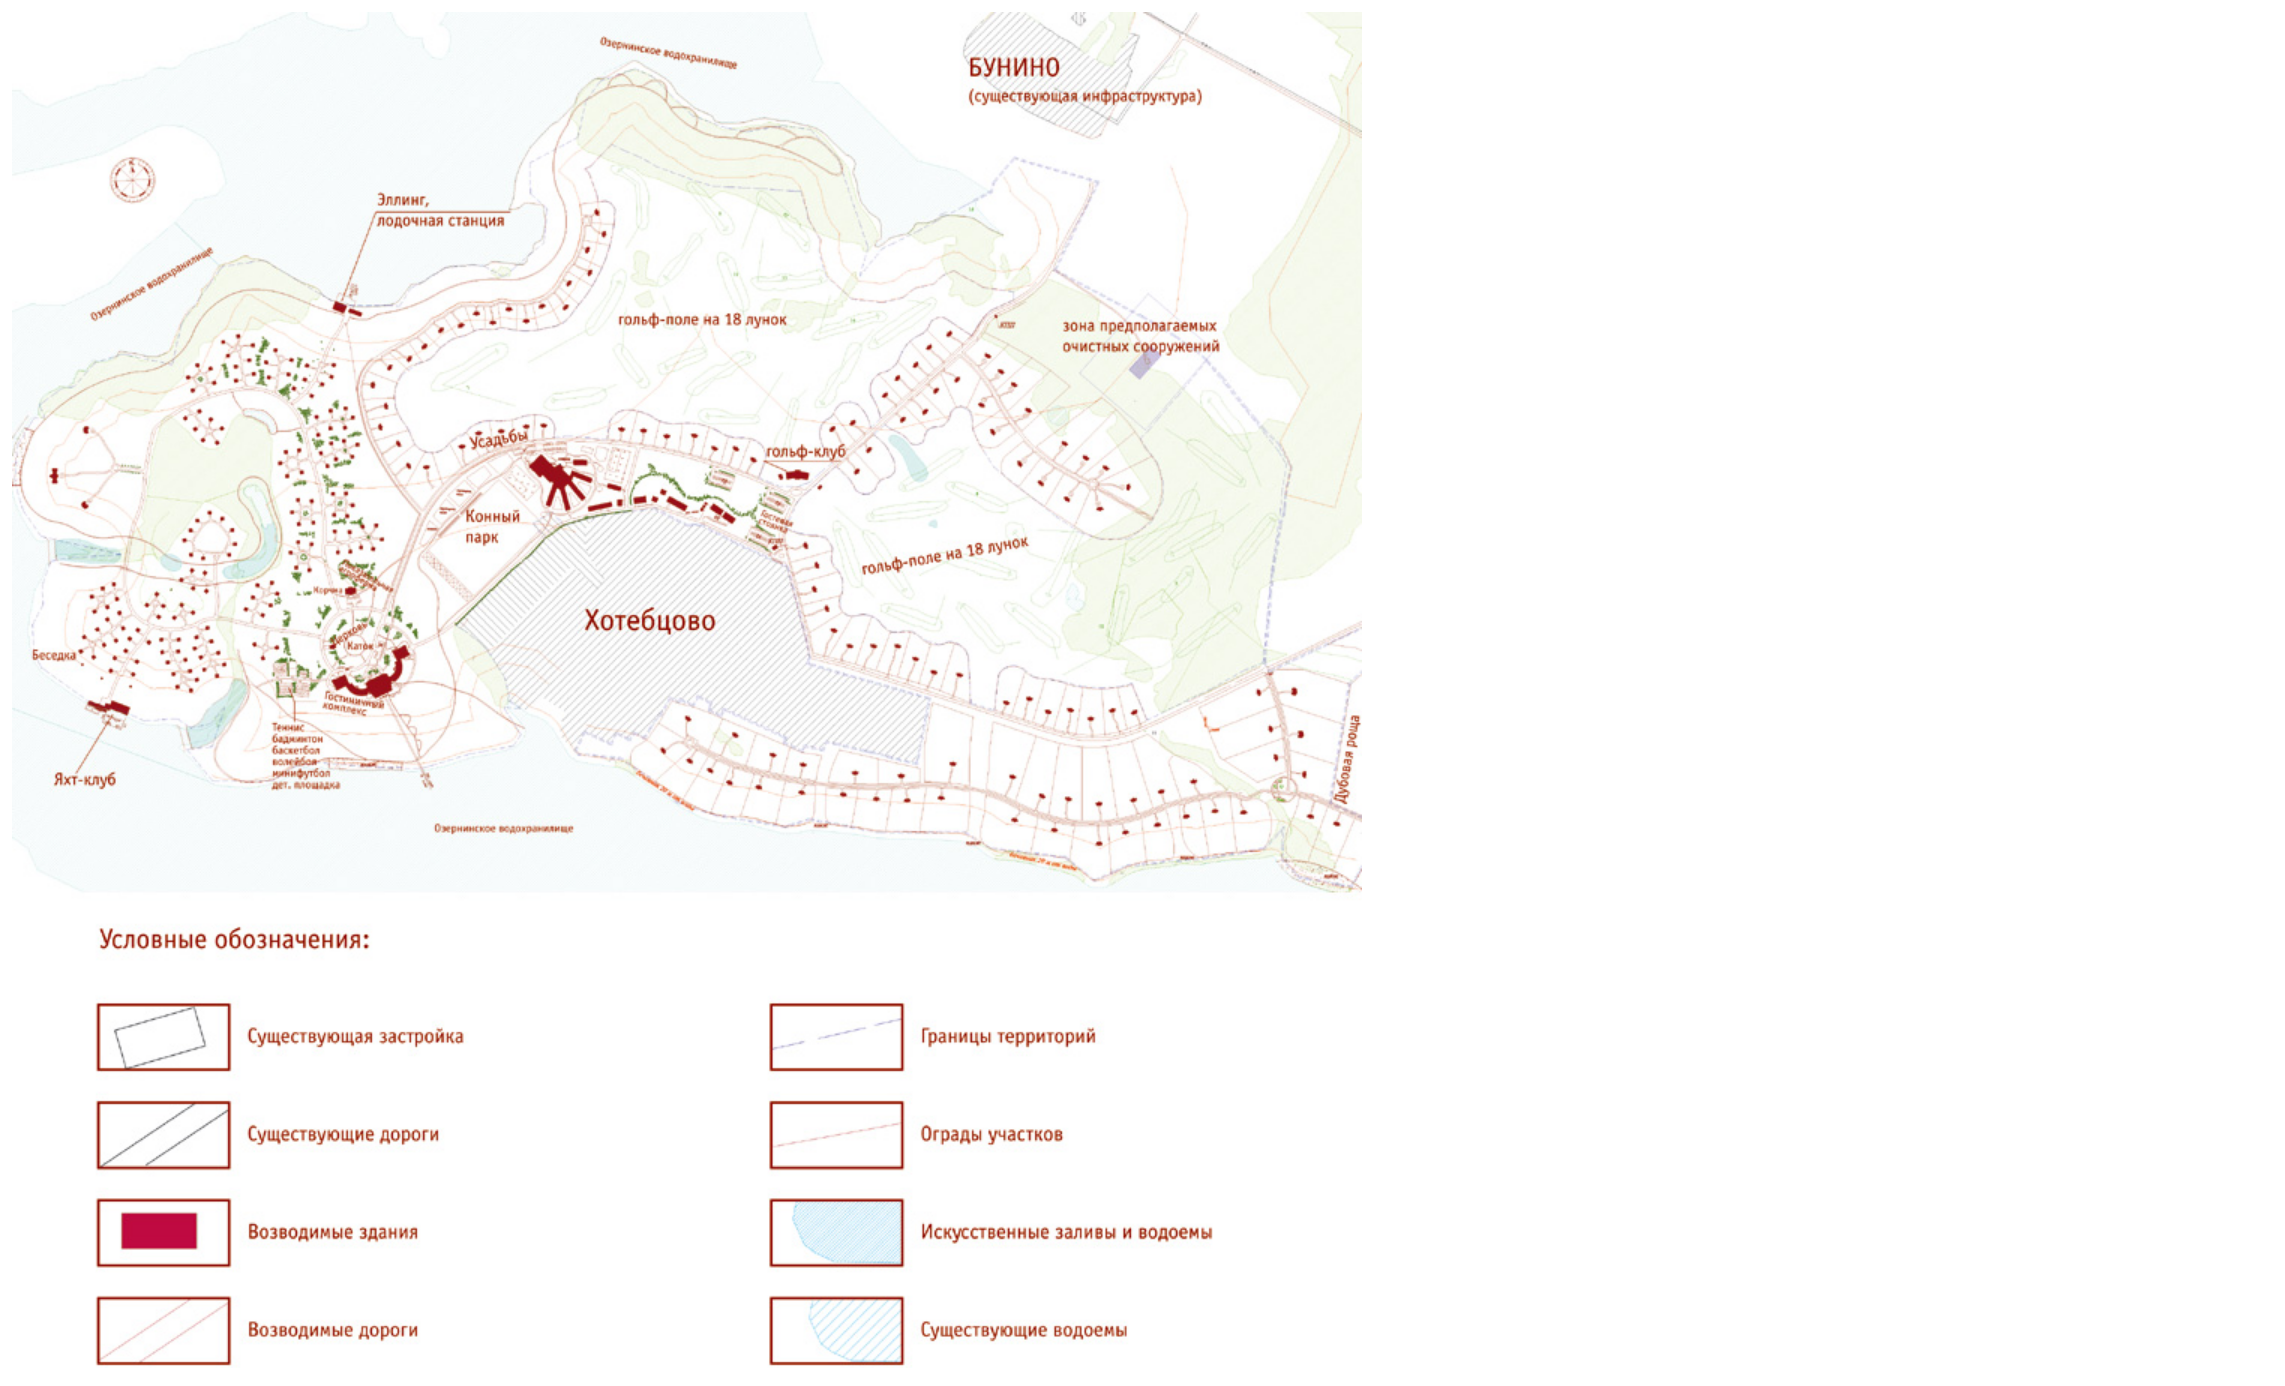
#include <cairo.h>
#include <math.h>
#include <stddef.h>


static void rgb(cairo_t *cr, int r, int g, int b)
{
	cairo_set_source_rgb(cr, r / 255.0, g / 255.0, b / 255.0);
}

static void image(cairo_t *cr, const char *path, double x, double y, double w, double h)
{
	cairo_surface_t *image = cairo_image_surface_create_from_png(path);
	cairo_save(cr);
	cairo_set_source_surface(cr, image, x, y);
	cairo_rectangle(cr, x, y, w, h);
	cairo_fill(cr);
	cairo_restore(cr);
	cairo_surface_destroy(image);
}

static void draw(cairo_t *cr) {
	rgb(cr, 255, 255, 255);
	cairo_paint(cr);
	image(cr, "image0.png", 12, 12, 1350, 1356);
}

int main(void) {
	cairo_surface_t *surface = cairo_image_surface_create(CAIRO_FORMAT_RGB24, 2285, 1386);
	cairo_t *cr = cairo_create(surface);
	cairo_font_options_t *options = cairo_font_options_create();
	cairo_font_options_set_hint_metrics(options, CAIRO_HINT_METRICS_OFF);
	cairo_font_options_set_hint_style(options, CAIRO_HINT_STYLE_NONE);
	cairo_set_font_options(cr, options);
	cairo_set_miter_limit(cr, 4);
	draw(cr);
	cairo_surface_write_to_png(surface, "render.png");
	cairo_font_options_destroy(options);
	cairo_destroy(cr);
	cairo_surface_destroy(surface);
	return 0;
}
